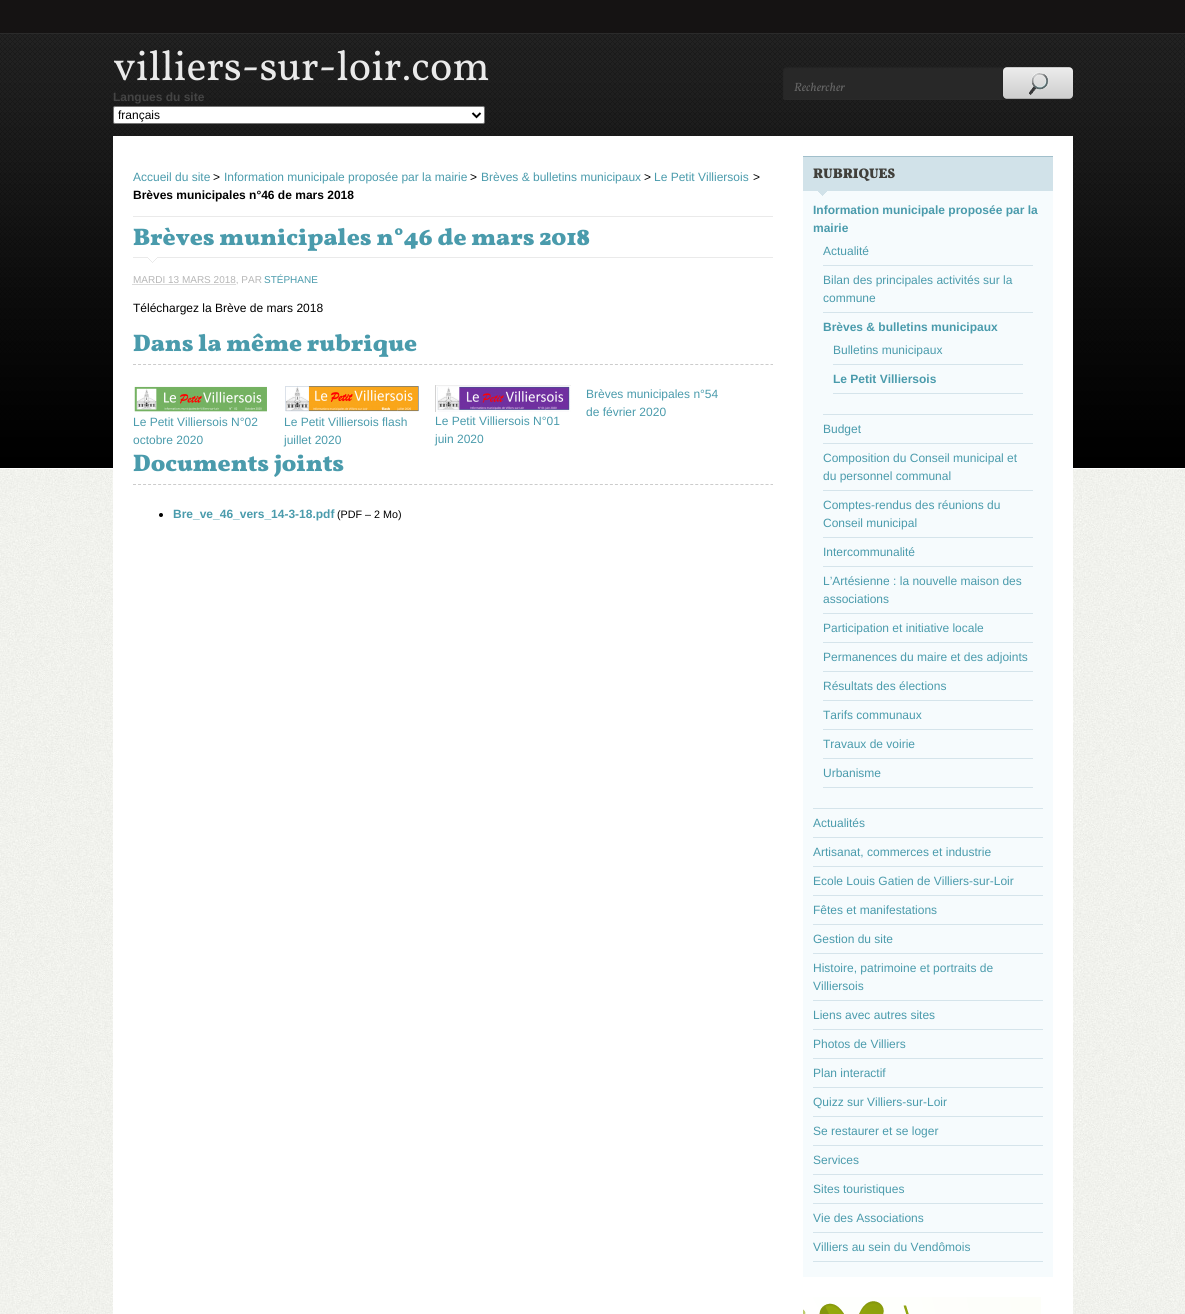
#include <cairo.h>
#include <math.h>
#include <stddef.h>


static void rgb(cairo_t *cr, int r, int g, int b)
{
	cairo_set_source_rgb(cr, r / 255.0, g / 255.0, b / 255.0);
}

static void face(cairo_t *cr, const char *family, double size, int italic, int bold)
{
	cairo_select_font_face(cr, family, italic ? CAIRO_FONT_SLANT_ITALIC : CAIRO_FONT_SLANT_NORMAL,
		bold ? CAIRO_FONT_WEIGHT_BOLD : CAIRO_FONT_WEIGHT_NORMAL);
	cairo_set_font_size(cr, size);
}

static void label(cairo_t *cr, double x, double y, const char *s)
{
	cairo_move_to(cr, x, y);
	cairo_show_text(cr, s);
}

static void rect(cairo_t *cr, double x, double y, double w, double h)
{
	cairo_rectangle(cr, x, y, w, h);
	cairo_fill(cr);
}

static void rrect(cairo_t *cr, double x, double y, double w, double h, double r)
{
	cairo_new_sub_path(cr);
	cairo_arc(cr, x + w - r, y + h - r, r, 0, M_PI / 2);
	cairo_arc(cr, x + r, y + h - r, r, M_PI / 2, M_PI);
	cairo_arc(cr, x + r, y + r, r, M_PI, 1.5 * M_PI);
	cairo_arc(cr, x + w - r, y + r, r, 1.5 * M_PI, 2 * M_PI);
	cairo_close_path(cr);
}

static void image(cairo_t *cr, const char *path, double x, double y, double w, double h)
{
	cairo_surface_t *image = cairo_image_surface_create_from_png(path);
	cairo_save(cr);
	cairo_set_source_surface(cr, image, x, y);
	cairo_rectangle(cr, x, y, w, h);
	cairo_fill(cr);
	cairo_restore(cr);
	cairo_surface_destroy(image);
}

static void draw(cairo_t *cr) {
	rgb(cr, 255, 255, 255);
	cairo_paint(cr);
	image(cr, "image0.png", 0, 469, 1185, 845);
	image(cr, "image1.png", 0, 34, 1185, 435);
	rgb(cr, 21, 19, 19);
	rect(cr, 0, 0, 1185, 33);
	rgb(cr, 43, 43, 43);
	rect(cr, 0, 33, 1185, 1);
	rgb(cr, 255, 255, 255);
	rect(cr, 113, 136, 960, 1178);
	face(cr, "Vollkorn", 42, 0, 0);
	rgb(cr, 234, 234, 234);
	label(cr, 113, 80, "villiers-sur-loir.com");
	face(cr, "Liberation Sans", 12, 0, 1);
	rgb(cr, 68, 68, 68);
	label(cr, 113, 101, "Langues du site");
	rgb(cr, 255, 255, 255);
	rrect(cr, 113.5, 106.5, 371, 17, 1.5);
	cairo_fill_preserve(cr);
	rgb(cr, 118, 118, 118);
	cairo_set_line_width(cr, 1);
	cairo_stroke(cr);
	cairo_new_path(cr);
	cairo_move_to(cr, 472.5, 113);
	cairo_line_to(cr, 476.5, 117);
	cairo_line_to(cr, 480.5, 113);
	rgb(cr, 0, 0, 0);
	cairo_set_line_width(cr, 2);
	cairo_stroke(cr);
	face(cr, "Liberation Sans", 12, 0, 0);
	label(cr, 118, 119, "français");
	rgb(cr, 74, 155, 172);
	label(cr, 133, 181, "Accueil du site");
	rgb(cr, 0, 0, 0);
	label(cr, 213, 181, ">");
	rgb(cr, 74, 155, 172);
	label(cr, 224, 181, "Information municipale proposée par la mairie");
	rgb(cr, 0, 0, 0);
	label(cr, 470, 181, ">");
	rgb(cr, 74, 155, 172);
	label(cr, 481, 181, "Brèves & bulletins municipaux");
	rgb(cr, 0, 0, 0);
	label(cr, 644, 181, ">");
	rgb(cr, 74, 155, 172);
	label(cr, 654, 181, "Le Petit Villiersois");
	rgb(cr, 0, 0, 0);
	label(cr, 753, 181, ">");
	face(cr, "Liberation Sans", 12, 0, 1);
	label(cr, 133, 199, "Brèves municipales n°46 de mars 2018");
	image(cr, "image2.png", 133, 257, 640, 6);
	rgb(cr, 234, 234, 234);
	rect(cr, 133, 216, 640, 1);
	face(cr, "Vollkorn", 24, 0, 1);
	rgb(cr, 74, 155, 172);
	label(cr, 133, 245, "Brèves municipales n°46 de mars 2018");
	cairo_new_path(cr);
	cairo_move_to(cr, 132.5, 284.5);
	cairo_line_to(cr, 235.5, 284.5);
	rgb(cr, 182, 182, 182);
	cairo_set_line_width(cr, 1);
	cairo_set_dash(cr, (double[]){1, 1}, 2, 0);
	cairo_stroke(cr);
	face(cr, "Liberation Sans", 10, 0, 0);
	label(cr, 133, 283, "MARDI 13 MARS 2018, PAR");
	rgb(cr, 74, 155, 172);
	label(cr, 264, 283, "STÉPHANE");
	face(cr, "Liberation Sans", 12, 0, 0);
	rgb(cr, 0, 0, 0);
	label(cr, 133, 312, "Téléchargez la Brève de mars 2018");
	cairo_new_path(cr);
	cairo_move_to(cr, 133, 364.5);
	cairo_line_to(cr, 773, 364.5);
	rgb(cr, 204, 204, 204);
	cairo_set_dash(cr, (double[]){3, 2.02}, 2, 0);
	cairo_stroke(cr);
	face(cr, "Vollkorn", 24, 0, 1);
	rgb(cr, 74, 155, 172);
	label(cr, 133, 351, "Dans la même rubrique");
	face(cr, "Liberation Sans", 12, 0, 0);
	label(cr, 586, 398, "Brèves municipales n°54");
	label(cr, 586, 416, "de février 2020");
	image(cr, "image3.png", 134, 386, 133, 26);
	label(cr, 133, 426, "Le Petit Villiersois N°02");
	label(cr, 133, 444, "octobre 2020");
	image(cr, "image4.png", 285, 386, 134, 26);
	label(cr, 284, 426, "Le Petit Villiersois flash");
	label(cr, 284, 444, "juillet 2020");
	image(cr, "image5.png", 435, 385, 136, 27);
	label(cr, 435, 425, "Le Petit Villiersois N°01");
	label(cr, 435, 443, "juin 2020");
	cairo_new_path(cr);
	cairo_move_to(cr, 133, 484.5);
	cairo_line_to(cr, 773, 484.5);
	rgb(cr, 204, 204, 204);
	cairo_stroke(cr);
	face(cr, "Vollkorn", 24, 0, 1);
	rgb(cr, 74, 155, 172);
	label(cr, 133, 471, "Documents joints");
	rgb(cr, 0, 0, 0);
	cairo_new_path(cr);
	cairo_arc(cr, 161, 515, 2, 0, 2 * M_PI);
	cairo_fill(cr);
	face(cr, "Liberation Sans", 12, 0, 1);
	rgb(cr, 74, 155, 172);
	label(cr, 173, 518, "Bre_ve_46_vers_14-3-18.pdf");
	face(cr, "Liberation Sans", 10.75, 0, 0);
	rgb(cr, 0, 0, 0);
	label(cr, 337, 518, "(PDF – 2 Mo)");
	image(cr, "image6.png", 783, 67, 220, 33);
	face(cr, "Vollkorn", 12, 1, 0);
	rgb(cr, 102, 102, 102);
	label(cr, 794, 91, "Rechercher");
	image(cr, "image7.png", 1003, 67, 70, 33);
	rgb(cr, 209, 226, 233);
	rect(cr, 803, 157, 250, 34);
	image(cr, "image8.png", 803, 191, 250, 5);
	rgb(cr, 161, 191, 203);
	rect(cr, 803, 156, 250, 1);
	face(cr, "Vollkorn", 14, 0, 1);
	rgb(cr, 65, 64, 59);
	label(cr, 813, 178, "RUBRIQUES");
	rgb(cr, 246, 251, 253);
	rect(cr, 803, 196, 250, 1081);
	rgb(cr, 213, 228, 235);
	rect(cr, 813, 808, 230, 1);
	face(cr, "Liberation Sans", 12, 0, 1);
	rgb(cr, 74, 155, 172);
	label(cr, 813, 214, "Information municipale proposée par la");
	label(cr, 813, 232, "mairie");
	rgb(cr, 213, 228, 235);
	rect(cr, 823, 265, 210, 1);
	face(cr, "Liberation Sans", 12, 0, 0);
	rgb(cr, 74, 155, 172);
	label(cr, 823, 255, "Actualité");
	rgb(cr, 213, 228, 235);
	rect(cr, 823, 312, 210, 1);
	rgb(cr, 74, 155, 172);
	label(cr, 823, 284, "Bilan des principales activités sur la");
	label(cr, 823, 302, "commune");
	rgb(cr, 213, 228, 235);
	rect(cr, 823, 414, 210, 1);
	face(cr, "Liberation Sans", 12, 0, 1);
	rgb(cr, 74, 155, 172);
	label(cr, 823, 331, "Brèves & bulletins municipaux");
	rgb(cr, 213, 228, 235);
	rect(cr, 833, 364, 190, 1);
	face(cr, "Liberation Sans", 12, 0, 0);
	rgb(cr, 74, 155, 172);
	label(cr, 833, 354, "Bulletins municipaux");
	rgb(cr, 213, 228, 235);
	rect(cr, 833, 393, 190, 1);
	face(cr, "Liberation Sans", 12, 0, 1);
	rgb(cr, 74, 155, 172);
	label(cr, 833, 383, "Le Petit Villiersois");
	rgb(cr, 213, 228, 235);
	rect(cr, 823, 443, 210, 1);
	face(cr, "Liberation Sans", 12, 0, 0);
	rgb(cr, 74, 155, 172);
	label(cr, 823, 433, "Budget");
	rgb(cr, 213, 228, 235);
	rect(cr, 823, 490, 210, 1);
	rgb(cr, 74, 155, 172);
	label(cr, 823, 462, "Composition du Conseil municipal et");
	label(cr, 823, 480, "du personnel communal");
	rgb(cr, 213, 228, 235);
	rect(cr, 823, 537, 210, 1);
	rgb(cr, 74, 155, 172);
	label(cr, 823, 509, "Comptes-rendus des réunions du");
	label(cr, 823, 527, "Conseil municipal");
	rgb(cr, 213, 228, 235);
	rect(cr, 823, 566, 210, 1);
	rgb(cr, 74, 155, 172);
	label(cr, 823, 556, "Intercommunalité");
	rgb(cr, 213, 228, 235);
	rect(cr, 823, 613, 210, 1);
	rgb(cr, 74, 155, 172);
	label(cr, 823, 585, "L’Artésienne : la nouvelle maison des");
	label(cr, 823, 603, "associations");
	rgb(cr, 213, 228, 235);
	rect(cr, 823, 642, 210, 1);
	rgb(cr, 74, 155, 172);
	label(cr, 823, 632, "Participation et initiative locale");
	rgb(cr, 213, 228, 235);
	rect(cr, 823, 671, 210, 1);
	rgb(cr, 74, 155, 172);
	label(cr, 823, 661, "Permanences du maire et des adjoints");
	rgb(cr, 213, 228, 235);
	rect(cr, 823, 700, 210, 1);
	rgb(cr, 74, 155, 172);
	label(cr, 823, 690, "Résultats des élections");
	rgb(cr, 213, 228, 235);
	rect(cr, 823, 729, 210, 1);
	rgb(cr, 74, 155, 172);
	label(cr, 823, 719, "Tarifs communaux");
	rgb(cr, 213, 228, 235);
	rect(cr, 823, 758, 210, 1);
	rgb(cr, 74, 155, 172);
	label(cr, 823, 748, "Travaux de voirie");
	rgb(cr, 213, 228, 235);
	rect(cr, 823, 787, 210, 1);
	rgb(cr, 74, 155, 172);
	label(cr, 823, 777, "Urbanisme");
	rgb(cr, 213, 228, 235);
	rect(cr, 813, 837, 230, 1);
	rgb(cr, 74, 155, 172);
	label(cr, 813, 827, "Actualités");
	rgb(cr, 213, 228, 235);
	rect(cr, 813, 866, 230, 1);
	rgb(cr, 74, 155, 172);
	label(cr, 813, 856, "Artisanat, commerces et industrie");
	rgb(cr, 213, 228, 235);
	rect(cr, 813, 895, 230, 1);
	rgb(cr, 74, 155, 172);
	label(cr, 813, 885, "Ecole Louis Gatien de Villiers-sur-Loir");
	rgb(cr, 213, 228, 235);
	rect(cr, 813, 924, 230, 1);
	rgb(cr, 74, 155, 172);
	label(cr, 813, 914, "Fêtes et manifestations");
	rgb(cr, 213, 228, 235);
	rect(cr, 813, 953, 230, 1);
	rgb(cr, 74, 155, 172);
	label(cr, 813, 943, "Gestion du site");
	rgb(cr, 213, 228, 235);
	rect(cr, 813, 1000, 230, 1);
	rgb(cr, 74, 155, 172);
	label(cr, 813, 972, "Histoire, patrimoine et portraits de");
	label(cr, 813, 990, "Villiersois");
	rgb(cr, 213, 228, 235);
	rect(cr, 813, 1029, 230, 1);
	rgb(cr, 74, 155, 172);
	label(cr, 813, 1019, "Liens avec autres sites");
	rgb(cr, 213, 228, 235);
	rect(cr, 813, 1058, 230, 1);
	rgb(cr, 74, 155, 172);
	label(cr, 813, 1048, "Photos de Villiers");
	rgb(cr, 213, 228, 235);
	rect(cr, 813, 1087, 230, 1);
	rgb(cr, 74, 155, 172);
	label(cr, 813, 1077, "Plan interactif");
	rgb(cr, 213, 228, 235);
	rect(cr, 813, 1116, 230, 1);
	rgb(cr, 74, 155, 172);
	label(cr, 813, 1106, "Quizz sur Villiers-sur-Loir");
	rgb(cr, 213, 228, 235);
	rect(cr, 813, 1145, 230, 1);
	rgb(cr, 74, 155, 172);
	label(cr, 813, 1135, "Se restaurer et se loger");
	rgb(cr, 213, 228, 235);
	rect(cr, 813, 1174, 230, 1);
	rgb(cr, 74, 155, 172);
	label(cr, 813, 1164, "Services");
	rgb(cr, 213, 228, 235);
	rect(cr, 813, 1203, 230, 1);
	rgb(cr, 74, 155, 172);
	label(cr, 813, 1193, "Sites touristiques");
	rgb(cr, 213, 228, 235);
	rect(cr, 813, 1232, 230, 1);
	rgb(cr, 74, 155, 172);
	label(cr, 813, 1222, "Vie des Associations");
	rgb(cr, 213, 228, 235);
	rect(cr, 813, 1261, 230, 1);
	rgb(cr, 74, 155, 172);
	label(cr, 813, 1251, "Villiers au sein du Vendômois");
	image(cr, "image9.png", 803, 1297, 238, 17);
}

int main(void) {
	cairo_surface_t *surface = cairo_image_surface_create(CAIRO_FORMAT_RGB24, 1185, 1314);
	cairo_t *cr = cairo_create(surface);
	cairo_font_options_t *options = cairo_font_options_create();
	cairo_font_options_set_hint_metrics(options, CAIRO_HINT_METRICS_OFF);
	cairo_font_options_set_hint_style(options, CAIRO_HINT_STYLE_NONE);
	cairo_set_font_options(cr, options);
	cairo_set_miter_limit(cr, 4);
	draw(cr);
	cairo_surface_write_to_png(surface, "render.png");
	cairo_font_options_destroy(options);
	cairo_destroy(cr);
	cairo_surface_destroy(surface);
	return 0;
}
